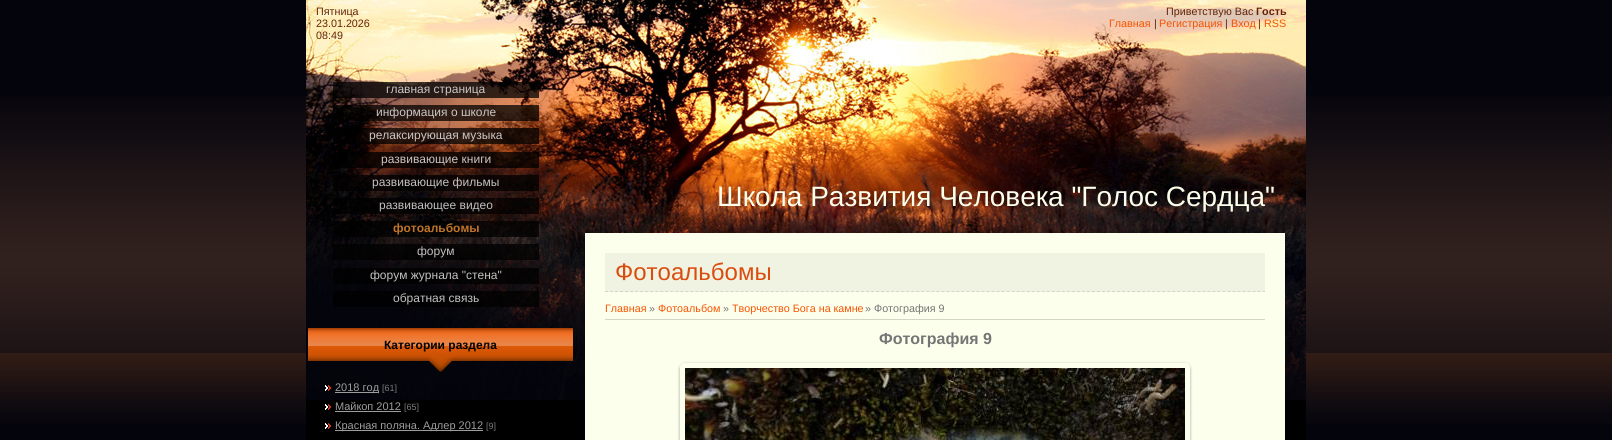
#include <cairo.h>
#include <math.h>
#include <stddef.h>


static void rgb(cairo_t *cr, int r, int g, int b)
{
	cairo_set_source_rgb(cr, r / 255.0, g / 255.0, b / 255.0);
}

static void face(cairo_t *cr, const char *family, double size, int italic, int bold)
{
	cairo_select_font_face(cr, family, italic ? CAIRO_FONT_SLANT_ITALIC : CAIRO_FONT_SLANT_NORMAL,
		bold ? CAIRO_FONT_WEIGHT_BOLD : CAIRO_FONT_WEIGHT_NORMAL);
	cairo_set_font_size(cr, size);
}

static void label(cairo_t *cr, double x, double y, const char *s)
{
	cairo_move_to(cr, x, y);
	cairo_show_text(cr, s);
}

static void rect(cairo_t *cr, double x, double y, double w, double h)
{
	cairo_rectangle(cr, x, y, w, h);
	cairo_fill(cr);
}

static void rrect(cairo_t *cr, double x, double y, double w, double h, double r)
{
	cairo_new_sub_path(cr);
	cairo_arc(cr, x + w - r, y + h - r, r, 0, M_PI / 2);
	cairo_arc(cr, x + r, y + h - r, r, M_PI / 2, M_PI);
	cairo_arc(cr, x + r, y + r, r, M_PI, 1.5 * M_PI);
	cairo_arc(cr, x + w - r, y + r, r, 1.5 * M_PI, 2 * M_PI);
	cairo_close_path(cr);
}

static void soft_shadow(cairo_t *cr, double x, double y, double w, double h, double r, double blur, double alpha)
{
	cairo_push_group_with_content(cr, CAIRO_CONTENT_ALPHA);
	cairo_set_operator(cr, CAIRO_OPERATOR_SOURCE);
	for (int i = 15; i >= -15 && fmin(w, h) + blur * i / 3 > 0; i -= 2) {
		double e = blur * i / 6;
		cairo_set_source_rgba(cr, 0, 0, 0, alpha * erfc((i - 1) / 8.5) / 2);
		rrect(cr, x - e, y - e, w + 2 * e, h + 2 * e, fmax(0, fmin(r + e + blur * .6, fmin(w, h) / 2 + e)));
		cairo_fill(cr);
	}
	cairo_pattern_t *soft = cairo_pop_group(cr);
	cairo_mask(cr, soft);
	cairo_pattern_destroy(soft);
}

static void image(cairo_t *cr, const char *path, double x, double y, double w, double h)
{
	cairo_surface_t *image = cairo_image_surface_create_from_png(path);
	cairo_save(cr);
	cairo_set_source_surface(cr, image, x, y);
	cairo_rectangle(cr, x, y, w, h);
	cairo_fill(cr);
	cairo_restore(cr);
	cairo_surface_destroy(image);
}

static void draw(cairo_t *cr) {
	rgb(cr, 4, 4, 12);
	cairo_paint(cr);
	image(cr, "image0.png", 0, 96, 1612, 328);
	rgb(cr, 0, 0, 0);
	rect(cr, 306, 400, 1000, 40);
	image(cr, "image1.png", 306, 0, 1000, 400);
	face(cr, "Liberation Sans", 10.75, 0, 0);
	rgb(cr, 101, 35, 5);
	label(cr, 316, 15, "Пятница");
	label(cr, 316, 27, "23.01.2026");
	label(cr, 316, 39, "08:49");
	label(cr, 1166, 15, "Приветствую Вас");
	face(cr, "Liberation Sans", 10.75, 0, 1);
	label(cr, 1256, 15, "Гость");
	face(cr, "Liberation Sans", 10.75, 0, 0);
	rgb(cr, 246, 84, 0);
	label(cr, 1109, 27, "Главная");
	rgb(cr, 101, 35, 5);
	label(cr, 1154, 27, "|");
	rgb(cr, 246, 84, 0);
	label(cr, 1159, 27, "Регистрация");
	rgb(cr, 101, 35, 5);
	label(cr, 1225, 27, "|");
	rgb(cr, 246, 84, 0);
	label(cr, 1231, 27, "Вход");
	rgb(cr, 101, 35, 5);
	label(cr, 1258, 27, "|");
	rgb(cr, 246, 84, 0);
	label(cr, 1264, 27, "RSS");
	cairo_set_source_rgba(cr, 0, 0, 0, 0.75);
	rect(cr, 333, 82, 206, 16);
	face(cr, "Liberation Sans", 12, 0, 0);
	rgb(cr, 201, 198, 197);
	label(cr, 386, 93, "главная страница");
	cairo_set_source_rgba(cr, 0, 0, 0, 0.75);
	rect(cr, 333, 105, 206, 16);
	rgb(cr, 201, 198, 197);
	label(cr, 376, 116, "информация о школе");
	cairo_set_source_rgba(cr, 0, 0, 0, 0.75);
	rect(cr, 333, 128, 206, 16);
	rgb(cr, 201, 198, 197);
	label(cr, 369, 139, "релаксирующая музыка");
	cairo_set_source_rgba(cr, 0, 0, 0, 0.75);
	rect(cr, 333, 152, 206, 16);
	rgb(cr, 201, 198, 197);
	label(cr, 381, 163, "развивающие книги");
	cairo_set_source_rgba(cr, 0, 0, 0, 0.75);
	rect(cr, 333, 175, 206, 16);
	rgb(cr, 194, 193, 192);
	label(cr, 372, 186, "развивающие фильмы");
	cairo_set_source_rgba(cr, 0, 0, 0, 0.75);
	rect(cr, 333, 198, 206, 16);
	rgb(cr, 194, 193, 192);
	label(cr, 379, 209, "развивающее видео");
	cairo_set_source_rgba(cr, 0, 0, 0, 0.75);
	rect(cr, 333, 221, 206, 16);
	face(cr, "Liberation Sans", 12, 0, 1);
	rgb(cr, 192, 116, 40);
	label(cr, 393, 232, "фотоальбомы");
	cairo_set_source_rgba(cr, 0, 0, 0, 0.75);
	rect(cr, 333, 244, 206, 16);
	face(cr, "Liberation Sans", 12, 0, 0);
	rgb(cr, 194, 193, 192);
	label(cr, 417, 255, "форум");
	cairo_set_source_rgba(cr, 0, 0, 0, 0.75);
	rect(cr, 333, 268, 206, 16);
	rgb(cr, 194, 193, 192);
	label(cr, 370, 279, "форум журнала \"стена\"");
	cairo_set_source_rgba(cr, 0, 0, 0, 0.75);
	rect(cr, 333, 291, 206, 16);
	rgb(cr, 194, 193, 192);
	label(cr, 393, 302, "обратная связь");
	image(cr, "image2.png", 308, 328, 265, 45);
	face(cr, "Liberation Sans", 12, 0, 1);
	rgb(cr, 0, 0, 0);
	label(cr, 384, 349, "Категории раздела");
	image(cr, "image3.png", 325, 385, 6, 6);
	rgb(cr, 157, 157, 157);
	rect(cr, 335, 392, 44, 1);
	face(cr, "Liberation Sans", 11, 0, 0);
	label(cr, 335, 391, "2018 год");
	face(cr, "Liberation Sans", 9, 0, 0);
	rgb(cr, 123, 123, 123);
	label(cr, 382, 391, "[61]");
	image(cr, "image4.png", 325, 404, 6, 6);
	face(cr, "Liberation Sans", 11, 0, 0);
	rgb(cr, 157, 157, 157);
	label(cr, 335, 410, "Майкоп 2012");
	rect(cr, 335, 411, 66, 1);
	face(cr, "Liberation Sans", 9, 0, 0);
	rgb(cr, 123, 123, 123);
	label(cr, 404, 410, "[65]");
	image(cr, "image4.png", 325, 423, 6, 6);
	rgb(cr, 157, 157, 157);
	rect(cr, 335, 430, 148, 1);
	face(cr, "Liberation Sans", 11, 0, 0);
	label(cr, 335, 429, "Красная поляна. Адлер 2012");
	face(cr, "Liberation Sans", 9, 0, 0);
	rgb(cr, 123, 123, 123);
	label(cr, 486, 429, "[9]");
	face(cr, "Liberation Sans", 28, 0, 0);
	rgb(cr, 253, 255, 237);
	label(cr, 717, 206, "Школа Развития Человека \"Голос Сердца\"");
	rect(cr, 585, 233, 700, 207);
	rgb(cr, 241, 243, 226);
	rect(cr, 605, 253, 660, 39);
	cairo_new_path(cr);
	cairo_move_to(cr, 605, 291.5);
	cairo_line_to(cr, 1265, 291.5);
	rgb(cr, 211, 213, 198);
	cairo_set_line_width(cr, 1);
	cairo_set_dash(cr, (double[]){3, 2.02}, 2, 0);
	cairo_stroke(cr);
	face(cr, "Liberation Sans", 24, 0, 0);
	rgb(cr, 218, 77, 14);
	label(cr, 615, 280, "Фотоальбомы");
	face(cr, "Liberation Sans", 10.75, 0, 0);
	rgb(cr, 246, 84, 0);
	label(cr, 605, 312, "Главная");
	rgb(cr, 117, 117, 117);
	label(cr, 649, 312, "»");
	rgb(cr, 246, 84, 0);
	label(cr, 658, 312, "Фотоальбом");
	rgb(cr, 117, 117, 117);
	label(cr, 723, 312, "»");
	rgb(cr, 246, 84, 0);
	label(cr, 732, 312, "Творчество Бога на камне");
	rgb(cr, 117, 117, 117);
	label(cr, 865, 312, "» Фотография 9");
	rgb(cr, 211, 213, 198);
	rect(cr, 605, 319, 660, 1);
	face(cr, "Liberation Sans", 16, 0, 1);
	rgb(cr, 117, 117, 117);
	label(cr, 879, 344, "Фотография 9");
	cairo_save(cr);
	cairo_set_fill_rule(cr, CAIRO_FILL_RULE_EVEN_ODD);
	cairo_new_path(cr);
	cairo_move_to(cr, 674, 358);
	cairo_line_to(cr, 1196, 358);
	cairo_line_to(cr, 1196, 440);
	cairo_line_to(cr, 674, 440);
	cairo_close_path(cr);
	cairo_move_to(cr, 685, 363);
	cairo_line_to(cr, 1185, 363);
	cairo_curve_to(cr, 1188, 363, 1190, 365, 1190, 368);
	cairo_line_to(cr, 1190, 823);
	cairo_curve_to(cr, 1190, 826, 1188, 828, 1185, 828);
	cairo_line_to(cr, 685, 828);
	cairo_curve_to(cr, 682, 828, 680, 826, 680, 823);
	cairo_line_to(cr, 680, 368);
	cairo_curve_to(cr, 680, 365, 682, 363, 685, 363);
	cairo_close_path(cr);
	cairo_clip(cr);
	rgb(cr, 0, 0, 0);
	soft_shadow(cr, 680, 364, 510, 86, 5, 1.5, 0.37);
	cairo_restore(cr);
	image(cr, "image5.png", 685, 368, 500, 72);
}

int main(void) {
	cairo_surface_t *surface = cairo_image_surface_create(CAIRO_FORMAT_RGB24, 1612, 440);
	cairo_t *cr = cairo_create(surface);
	cairo_font_options_t *options = cairo_font_options_create();
	cairo_font_options_set_hint_metrics(options, CAIRO_HINT_METRICS_OFF);
	cairo_font_options_set_hint_style(options, CAIRO_HINT_STYLE_NONE);
	cairo_set_font_options(cr, options);
	cairo_set_miter_limit(cr, 4);
	draw(cr);
	cairo_surface_write_to_png(surface, "render.png");
	cairo_font_options_destroy(options);
	cairo_destroy(cr);
	cairo_surface_destroy(surface);
	return 0;
}
